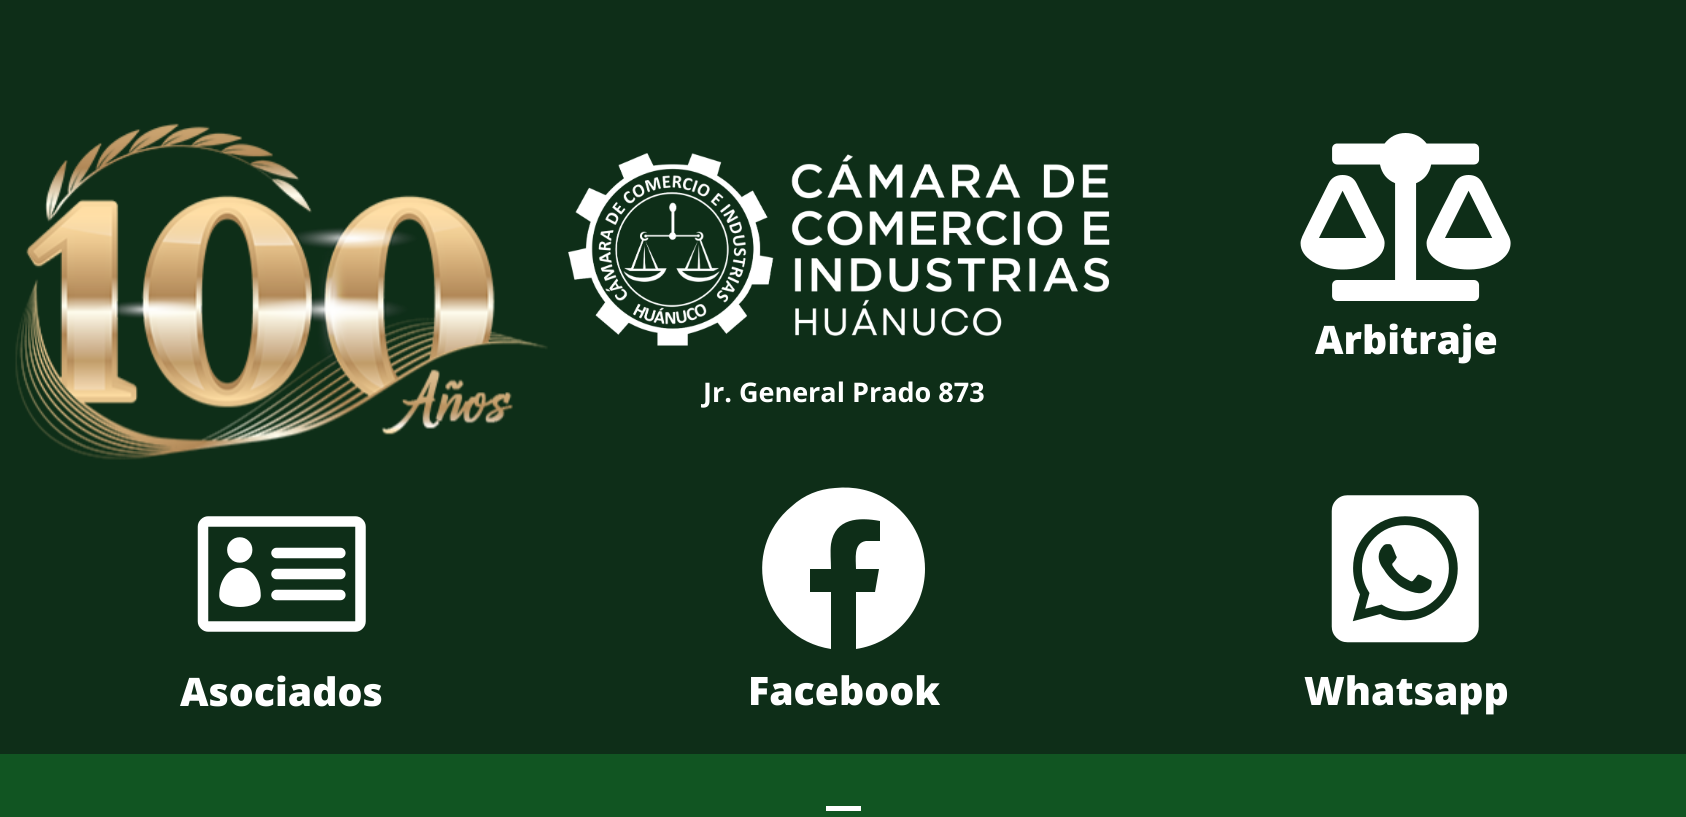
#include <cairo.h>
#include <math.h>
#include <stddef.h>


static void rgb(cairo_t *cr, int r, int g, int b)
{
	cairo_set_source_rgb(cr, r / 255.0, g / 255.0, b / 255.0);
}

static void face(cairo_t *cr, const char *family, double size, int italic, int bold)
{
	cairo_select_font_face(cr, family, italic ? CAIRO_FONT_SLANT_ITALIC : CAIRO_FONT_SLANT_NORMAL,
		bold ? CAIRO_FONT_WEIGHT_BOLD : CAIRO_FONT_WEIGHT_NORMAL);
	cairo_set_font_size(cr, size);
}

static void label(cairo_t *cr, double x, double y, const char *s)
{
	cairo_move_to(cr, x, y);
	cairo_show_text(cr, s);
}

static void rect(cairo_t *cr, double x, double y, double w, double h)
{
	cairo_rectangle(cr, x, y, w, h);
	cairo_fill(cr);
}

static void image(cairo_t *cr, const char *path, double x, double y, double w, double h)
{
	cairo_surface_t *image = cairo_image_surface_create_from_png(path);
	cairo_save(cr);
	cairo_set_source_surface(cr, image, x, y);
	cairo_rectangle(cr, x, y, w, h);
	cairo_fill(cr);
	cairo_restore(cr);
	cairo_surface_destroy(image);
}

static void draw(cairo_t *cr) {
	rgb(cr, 14, 46, 24);
	cairo_paint(cr);
	image(cr, "image0.png", 15, 123, 533, 337);
	image(cr, "image1.png", 1300, 133, 211, 168);
	face(cr, "Open Sans ExtraBold", 39.25, 0, 0);
	rgb(cr, 255, 255, 255);
	label(cr, 1315, 354, "Arbitraje");
	image(cr, "image2.png", 568, 153, 542, 193);
	face(cr, "Open Sans", 27, 0, 1);
	label(cr, 703, 402, "Jr. General Prado 873");
	image(cr, "image3.png", 197, 516, 169, 116);
	face(cr, "Open Sans ExtraBold", 39.25, 0, 0);
	label(cr, 180, 706, "Asociados");
	cairo_new_path(cr);
	cairo_move_to(cr, 925, 569);
	cairo_curve_to(cr, 925, 609, 896, 643, 856, 649);
	cairo_line_to(cr, 856, 592);
	cairo_line_to(cr, 875, 592);
	cairo_line_to(cr, 879, 569);
	cairo_line_to(cr, 856, 569);
	cairo_curve_to(cr, 856, 559, 853, 543, 866, 541);
	cairo_line_to(cr, 880, 541);
	cairo_line_to(cr, 880, 521);
	cairo_curve_to(cr, 859, 517, 835, 518, 831, 544);
	cairo_curve_to(cr, 830, 552, 831, 561, 831, 569);
	cairo_line_to(cr, 810, 569);
	cairo_line_to(cr, 810, 592);
	cairo_line_to(cr, 831, 592);
	cairo_line_to(cr, 831, 649);
	cairo_curve_to(cr, 761, 638, 738, 550, 792, 506);
	cairo_curve_to(cr, 804, 495, 819, 489, 835, 488);
	cairo_curve_to(cr, 854, 486, 873, 490, 889, 501);
	cairo_curve_to(cr, 911, 516, 925, 541, 925, 569);
	cairo_close_path(cr);
	cairo_fill(cr);
	label(cr, 748, 705, "Facebook");
	image(cr, "image4.png", 1331, 495, 148, 148);
	label(cr, 1304, 705, "Whatsapp");
	rgb(cr, 17, 85, 34);
	rect(cr, 0, 754, 1686, 63);
	rgb(cr, 255, 255, 255);
	rect(cr, 826, 806, 35, 5);
}

int main(void) {
	cairo_surface_t *surface = cairo_image_surface_create(CAIRO_FORMAT_RGB24, 1686, 817);
	cairo_t *cr = cairo_create(surface);
	cairo_font_options_t *options = cairo_font_options_create();
	cairo_font_options_set_hint_metrics(options, CAIRO_HINT_METRICS_OFF);
	cairo_font_options_set_hint_style(options, CAIRO_HINT_STYLE_NONE);
	cairo_set_font_options(cr, options);
	cairo_set_miter_limit(cr, 4);
	draw(cr);
	cairo_surface_write_to_png(surface, "render.png");
	cairo_font_options_destroy(options);
	cairo_destroy(cr);
	cairo_surface_destroy(surface);
	return 0;
}
